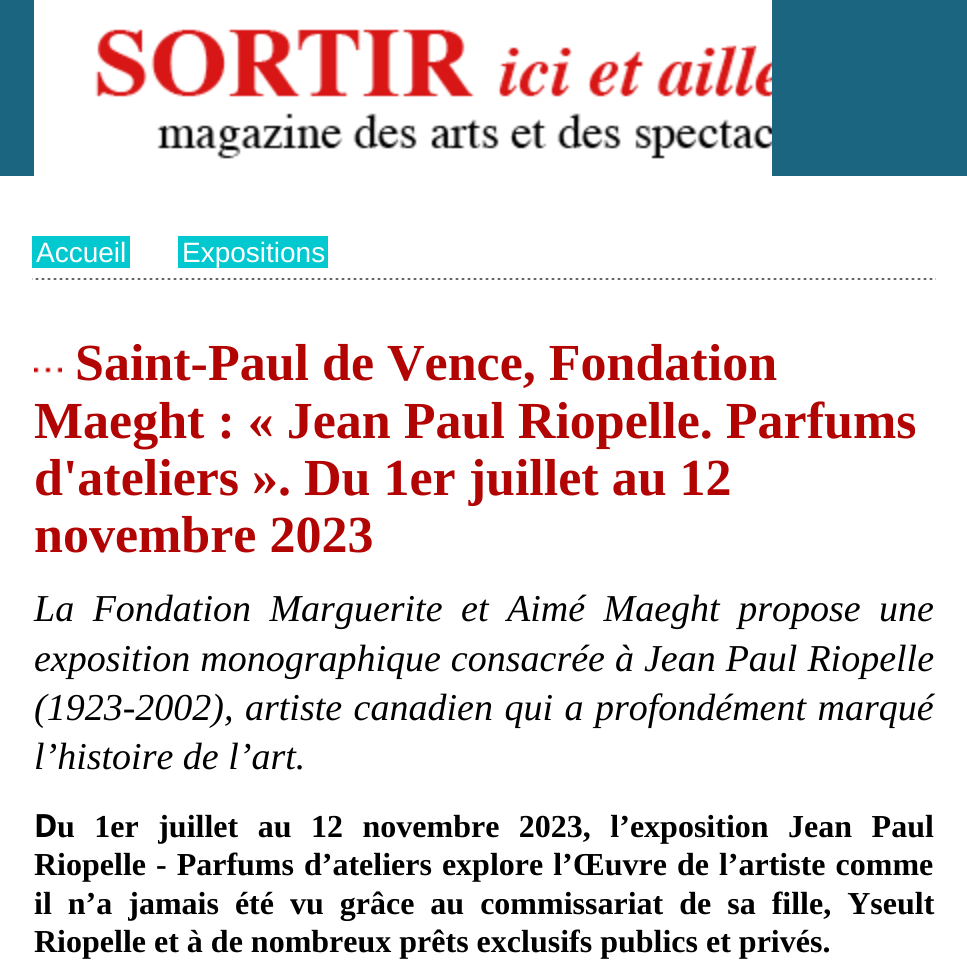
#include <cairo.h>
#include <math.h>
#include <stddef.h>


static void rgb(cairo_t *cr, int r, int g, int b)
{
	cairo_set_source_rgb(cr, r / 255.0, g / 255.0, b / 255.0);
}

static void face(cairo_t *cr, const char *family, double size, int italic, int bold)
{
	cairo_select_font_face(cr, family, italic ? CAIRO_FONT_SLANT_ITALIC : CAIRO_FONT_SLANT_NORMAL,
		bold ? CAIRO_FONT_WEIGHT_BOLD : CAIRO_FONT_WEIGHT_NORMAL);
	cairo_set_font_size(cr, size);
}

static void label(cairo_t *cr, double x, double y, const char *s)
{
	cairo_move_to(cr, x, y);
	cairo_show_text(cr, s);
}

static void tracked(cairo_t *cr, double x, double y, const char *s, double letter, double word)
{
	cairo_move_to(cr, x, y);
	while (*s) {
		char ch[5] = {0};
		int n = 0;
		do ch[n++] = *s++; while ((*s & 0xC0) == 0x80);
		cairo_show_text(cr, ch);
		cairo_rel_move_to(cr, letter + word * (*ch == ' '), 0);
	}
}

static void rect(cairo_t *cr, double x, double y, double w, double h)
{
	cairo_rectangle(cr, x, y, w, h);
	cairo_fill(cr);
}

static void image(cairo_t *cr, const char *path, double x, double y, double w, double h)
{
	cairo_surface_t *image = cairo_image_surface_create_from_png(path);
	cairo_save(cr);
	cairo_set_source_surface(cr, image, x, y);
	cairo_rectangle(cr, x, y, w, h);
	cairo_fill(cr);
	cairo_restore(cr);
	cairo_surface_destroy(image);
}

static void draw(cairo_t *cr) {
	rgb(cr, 255, 255, 255);
	cairo_paint(cr);
	rgb(cr, 28, 101, 128);
	rect(cr, 0, 0, 34, 176);
	image(cr, "image0.png", 34, 0, 738, 176);
	rect(cr, 772, 0, 195, 176);
	rgb(cr, 2, 200, 207);
	rect(cr, 32, 236, 98, 32);
	face(cr, "Liberation Sans", 28, 0, 0);
	rgb(cr, 255, 255, 255);
	label(cr, 36, 262, "Accueil");
	rgb(cr, 2, 200, 207);
	rect(cr, 178, 236, 150, 32);
	rgb(cr, 255, 255, 255);
	label(cr, 182, 262, "Expositions");
	image(cr, "image1.png", 32, 278, 904, 2);
	image(cr, "image2.png", 34, 367, 28, 6);
	face(cr, "Liberation Serif", 52, 0, 1);
	rgb(cr, 179, 4, 4);
	label(cr, 75, 380, "Saint-Paul de Vence, Fondation");
	label(cr, 34, 438, "Maeght : « Jean Paul Riopelle. Parfums");
	label(cr, 34, 495, "d'ateliers ». Du 1er juillet au 12");
	label(cr, 34, 552, "novembre 2023");
	face(cr, "Liberation Serif", 38, 1, 0);
	rgb(cr, 0, 0, 0);
	tracked(cr, 34, 621, "La Fondation Marguerite et Aimé Maeght propose une", 0, 9);
	tracked(cr, 34, 671, "exposition monographique consacrée à Jean Paul Riopelle", 0, 0.5);
	tracked(cr, 34, 720, "(1923-2002), artiste canadien qui a profondément marqué", 0, 2);
	label(cr, 34, 769, "l’histoire de l’art.");
	face(cr, "Noto Sans", 32, 0, 1);
	label(cr, 34, 837, "D");
	face(cr, "Liberation Serif", 32, 0, 1);
	tracked(cr, 57, 837, "u 1er juillet au 12 novembre 2023, l’exposition Jean Paul", 0, 11.5);
	tracked(cr, 34, 875, "Riopelle - Parfums d’ateliers explore l’Œuvre de l’artiste comme", 0, 2);
	tracked(cr, 34, 914, "il n’a jamais été vu grâce au commissariat de sa fille, Yseult", 0, 8);
	label(cr, 34, 952, "Riopelle et à de nombreux prêts exclusifs publics et privés.");
}

int main(void) {
	cairo_surface_t *surface = cairo_image_surface_create(CAIRO_FORMAT_RGB24, 967, 977);
	cairo_t *cr = cairo_create(surface);
	cairo_font_options_t *options = cairo_font_options_create();
	cairo_font_options_set_hint_metrics(options, CAIRO_HINT_METRICS_OFF);
	cairo_font_options_set_hint_style(options, CAIRO_HINT_STYLE_NONE);
	cairo_set_font_options(cr, options);
	cairo_set_miter_limit(cr, 4);
	draw(cr);
	cairo_surface_write_to_png(surface, "render.png");
	cairo_font_options_destroy(options);
	cairo_destroy(cr);
	cairo_surface_destroy(surface);
	return 0;
}
